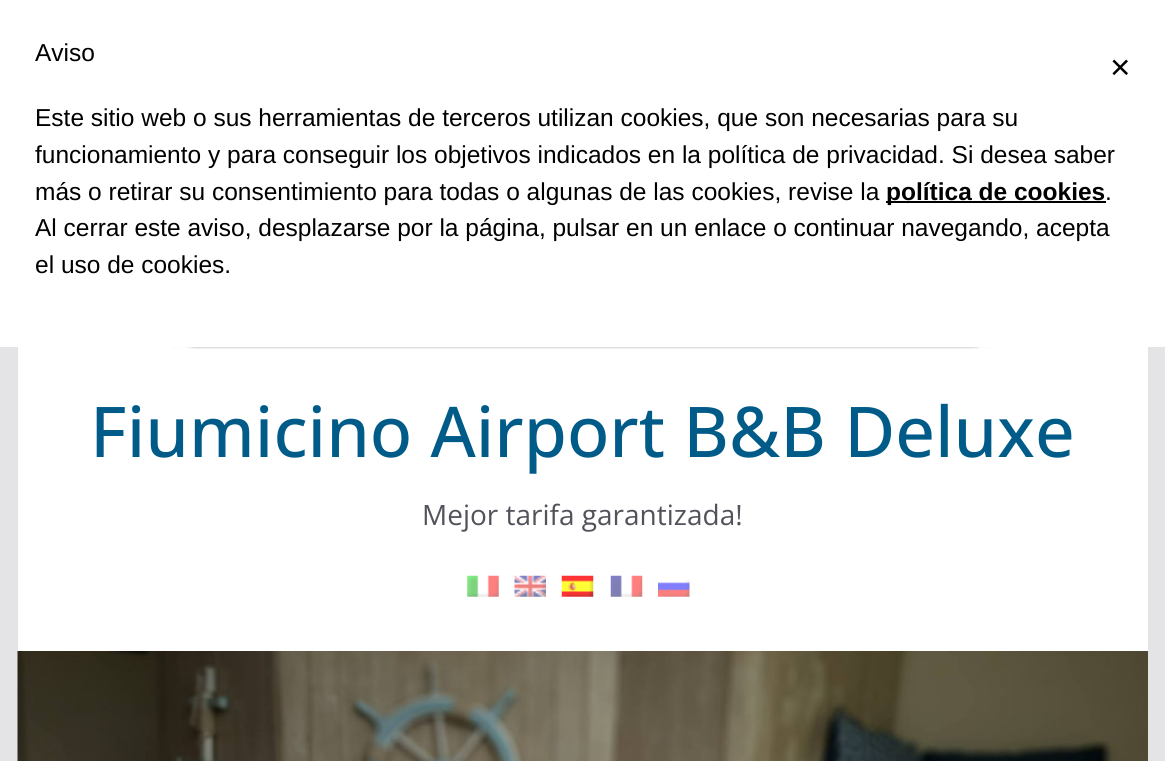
#include <cairo.h>
#include <math.h>
#include <stddef.h>


static void rgb(cairo_t *cr, int r, int g, int b)
{
	cairo_set_source_rgb(cr, r / 255.0, g / 255.0, b / 255.0);
}

static void face(cairo_t *cr, const char *family, double size, int italic, int bold)
{
	cairo_select_font_face(cr, family, italic ? CAIRO_FONT_SLANT_ITALIC : CAIRO_FONT_SLANT_NORMAL,
		bold ? CAIRO_FONT_WEIGHT_BOLD : CAIRO_FONT_WEIGHT_NORMAL);
	cairo_set_font_size(cr, size);
}

static void label(cairo_t *cr, double x, double y, const char *s)
{
	cairo_move_to(cr, x, y);
	cairo_show_text(cr, s);
}

static void rect(cairo_t *cr, double x, double y, double w, double h)
{
	cairo_rectangle(cr, x, y, w, h);
	cairo_fill(cr);
}

static void image(cairo_t *cr, const char *path, double x, double y, double w, double h)
{
	cairo_surface_t *image = cairo_image_surface_create_from_png(path);
	cairo_save(cr);
	cairo_set_source_surface(cr, image, x, y);
	cairo_rectangle(cr, x, y, w, h);
	cairo_fill(cr);
	cairo_restore(cr);
	cairo_surface_destroy(image);
}

static void draw(cairo_t *cr) {
	rgb(cr, 228, 228, 231);
	cairo_paint(cr);
	rgb(cr, 255, 255, 255);
	rect(cr, 0, 0, 1165, 347);
	face(cr, "Liberation Sans", 24.5, 0, 0);
	rgb(cr, 0, 0, 0);
	label(cr, 35, 61, "Aviso");
	label(cr, 35, 126, "Este sitio web o sus herramientas de terceros utilizan cookies, que son necesarias para su");
	label(cr, 35, 163, "funcionamiento y para conseguir los objetivos indicados en la política de privacidad. Si desea saber");
	label(cr, 35, 200, "más o retirar su consentimiento para todas o algunas de las cookies, revise la");
	rect(cr, 886, 201, 220, 2);
	face(cr, "Liberation Sans", 24.5, 0, 1);
	label(cr, 886, 200, "política de cookies");
	face(cr, "Liberation Sans", 24.5, 0, 0);
	label(cr, 1105, 200, ".");
	label(cr, 35, 236, "Al cerrar este aviso, desplazarse por la página, pulsar en un enlace o continuar navegando, acepta");
	label(cr, 35, 273, "el uso de cookies.");
	face(cr, "Liberation Sans", 35, 0, 0);
	label(cr, 1110, 79, "×");
	rgb(cr, 255, 255, 255);
	rect(cr, 18, 347, 1130, 304);
	image(cr, "image0.png", 171, 347, 823, 2);
	face(cr, "Open Sans Medium", 70, 0, 0);
	rgb(cr, 0, 91, 137);
	label(cr, 90, 457, "Fiumicino Airport B&B Deluxe");
	face(cr, "Open Sans", 28, 0, 0);
	rgb(cr, 82, 82, 91);
	label(cr, 422, 525, "Mejor tarifa garantizada!");
	image(cr, "image1.png", 467, 575, 32, 22);
	image(cr, "image2.png", 514, 575, 32, 22);
	image(cr, "image3.png", 561, 575, 33, 22);
	image(cr, "image4.png", 610, 575, 33, 22);
	image(cr, "image5.png", 658, 579, 32, 18);
	image(cr, "image6.png", 17, 651, 1131, 110);
}

int main(void) {
	cairo_surface_t *surface = cairo_image_surface_create(CAIRO_FORMAT_RGB24, 1165, 761);
	cairo_t *cr = cairo_create(surface);
	cairo_font_options_t *options = cairo_font_options_create();
	cairo_font_options_set_hint_metrics(options, CAIRO_HINT_METRICS_OFF);
	cairo_font_options_set_hint_style(options, CAIRO_HINT_STYLE_NONE);
	cairo_set_font_options(cr, options);
	cairo_set_miter_limit(cr, 4);
	draw(cr);
	cairo_surface_write_to_png(surface, "render.png");
	cairo_font_options_destroy(options);
	cairo_destroy(cr);
	cairo_surface_destroy(surface);
	return 0;
}
